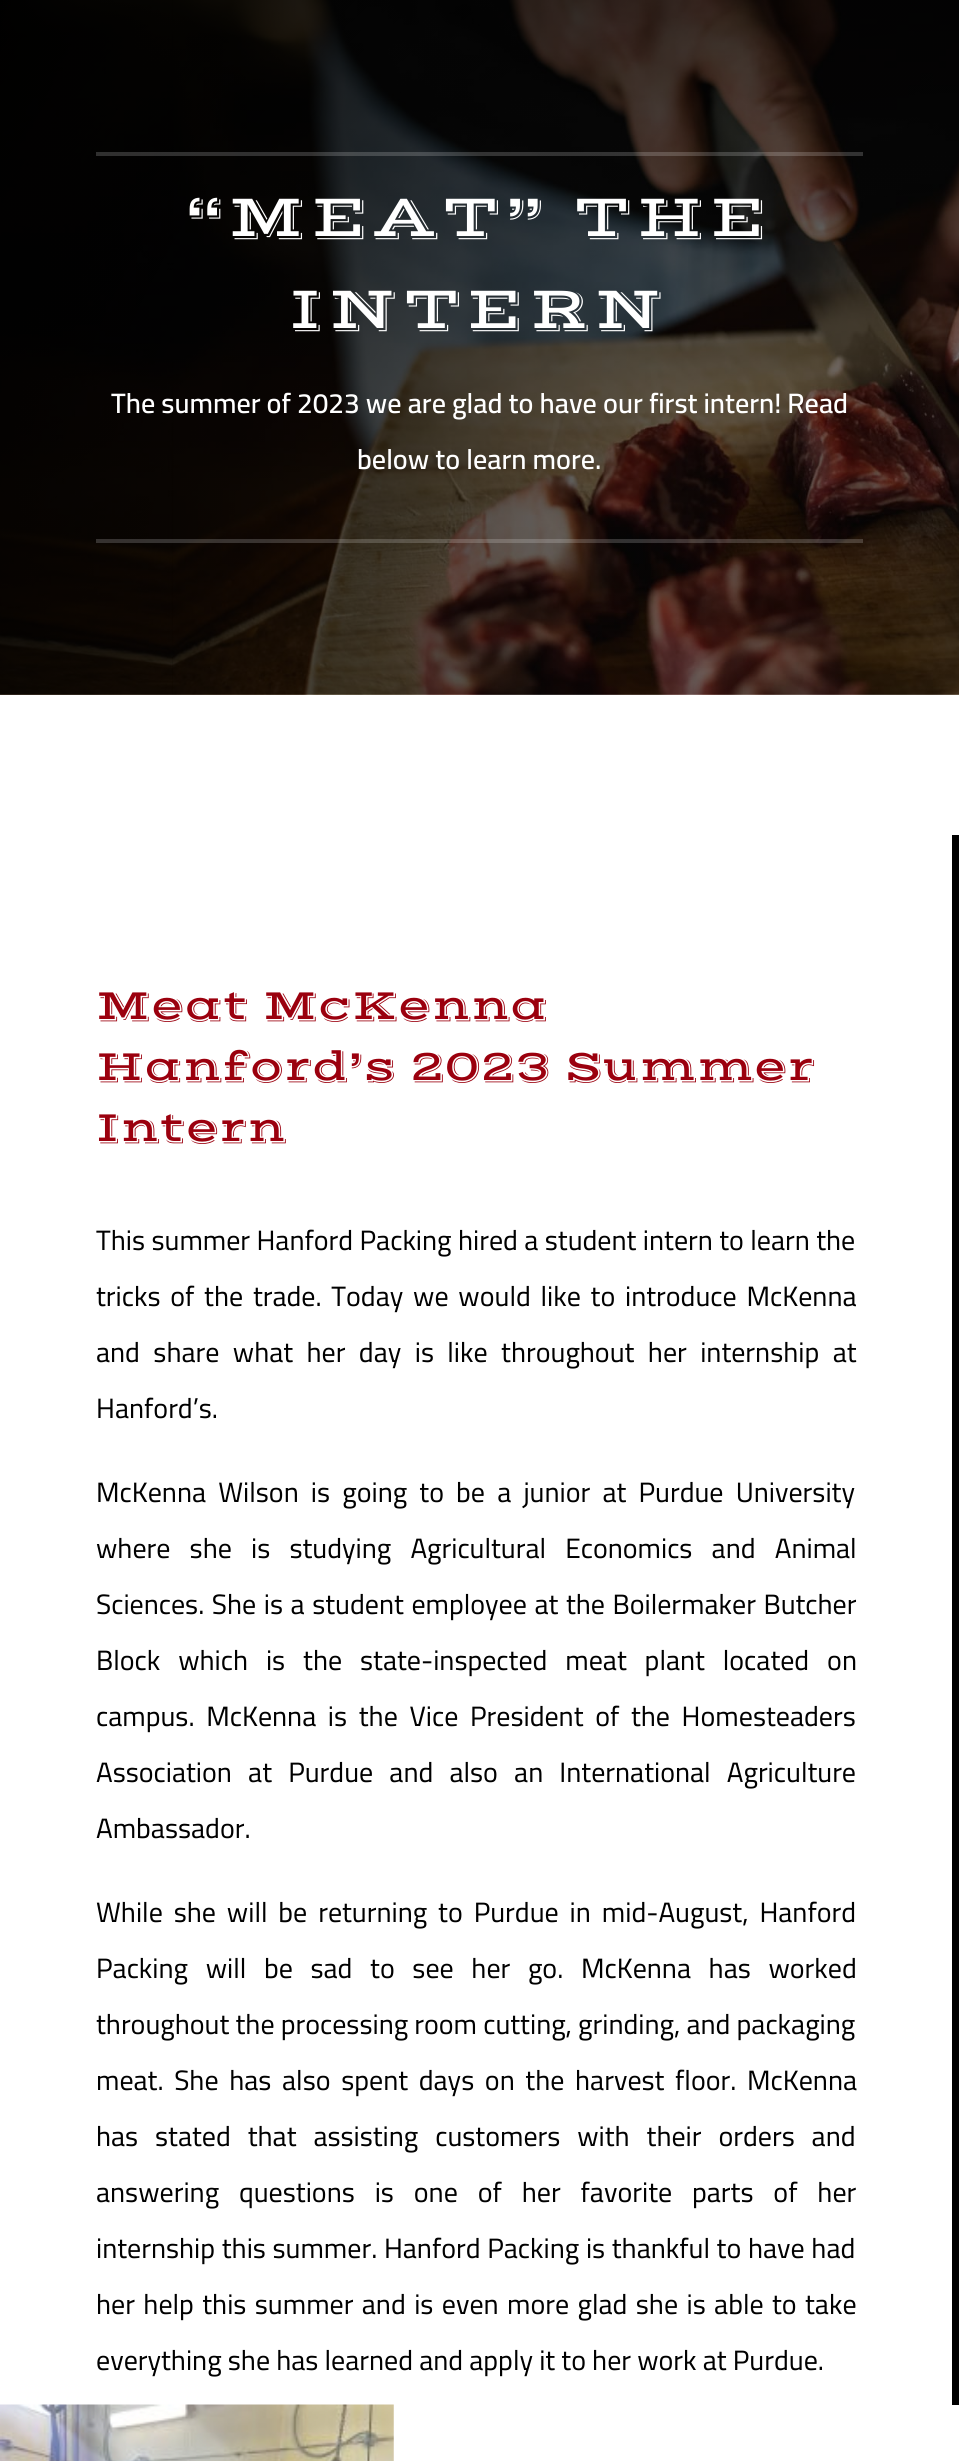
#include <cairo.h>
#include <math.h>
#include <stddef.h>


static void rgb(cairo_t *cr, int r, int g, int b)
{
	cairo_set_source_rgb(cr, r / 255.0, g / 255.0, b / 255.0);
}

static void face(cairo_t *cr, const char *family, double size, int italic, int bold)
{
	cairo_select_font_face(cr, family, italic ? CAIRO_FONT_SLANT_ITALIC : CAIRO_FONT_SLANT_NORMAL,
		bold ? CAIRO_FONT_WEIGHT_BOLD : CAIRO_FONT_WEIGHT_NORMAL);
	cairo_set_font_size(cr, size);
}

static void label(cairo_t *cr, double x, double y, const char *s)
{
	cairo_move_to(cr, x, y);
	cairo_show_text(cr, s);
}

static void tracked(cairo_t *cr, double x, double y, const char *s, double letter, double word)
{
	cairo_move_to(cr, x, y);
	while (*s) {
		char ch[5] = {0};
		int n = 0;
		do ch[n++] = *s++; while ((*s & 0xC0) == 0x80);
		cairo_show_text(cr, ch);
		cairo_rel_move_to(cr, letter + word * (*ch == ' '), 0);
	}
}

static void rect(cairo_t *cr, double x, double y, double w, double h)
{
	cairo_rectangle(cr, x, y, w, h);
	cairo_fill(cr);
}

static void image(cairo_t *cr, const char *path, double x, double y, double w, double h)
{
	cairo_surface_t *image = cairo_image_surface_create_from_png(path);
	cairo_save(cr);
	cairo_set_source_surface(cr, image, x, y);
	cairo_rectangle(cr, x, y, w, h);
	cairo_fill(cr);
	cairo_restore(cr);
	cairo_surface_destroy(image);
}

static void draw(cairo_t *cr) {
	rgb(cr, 255, 255, 255);
	cairo_paint(cr);
	image(cr, "image0.png", 0, 0, 959, 695);
	cairo_set_source_rgba(cr, 1, 1, 1, 0.18);
	rect(cr, 96, 152, 767, 4);
	rect(cr, 96, 539, 767, 4);
	face(cr, "Vast Shadow", 61.25, 0, 0);
	rgb(cr, 255, 255, 255);
	tracked(cr, 185, 236, "“MEAT” THE", 5.25, 0);
	tracked(cr, 289, 328, "INTERN", 5.25, 0);
	face(cr, "Cairo SemiBold", 28, 0, 0);
	label(cr, 111, 413, "The summer of 2023 we are glad to have our first intern! Read");
	label(cr, 357, 469, "below to learn more.");
	rgb(cr, 0, 0, 0);
	rect(cr, 952, 835, 7, 1570);
	face(cr, "Vast Shadow", 43.75, 0, 0);
	rgb(cr, 155, 0, 14);
	label(cr, 96, 1019, "Meat McKenna");
	label(cr, 96, 1080, "Hanford’s 2023 Summer");
	label(cr, 96, 1141, "Intern");
	face(cr, "Cairo", 28, 0, 0);
	rgb(cr, 0, 0, 0);
	tracked(cr, 96, 1250, "This summer Hanford Packing hired a student intern to learn the", 0, 0.25);
	tracked(cr, 96, 1306, "tricks of the trade. Today we would like to introduce McKenna", 0, 3.6);
	tracked(cr, 96, 1362, "and share what her day is like throughout her internship at", 0, 7.25);
	label(cr, 96, 1418, "Hanford’s.");
	tracked(cr, 96, 1502, "McKenna Wilson is going to be a junior at Purdue University", 0, 6);
	tracked(cr, 96, 1558, "where she is studying Agricultural Economics and Animal", 0, 13);
	tracked(cr, 96, 1614, "Sciences. She is a student employee at the Boilermaker Butcher", 0, 1.4);
	tracked(cr, 96, 1670, "Block which is the state-inspected meat plant located on", 0, 11.75);
	tracked(cr, 96, 1726, "campus. McKenna is the Vice President of the Homesteaders", 0, 5.5);
	tracked(cr, 96, 1782, "Association at Purdue and also an International Agriculture", 0, 10);
	label(cr, 96, 1838, "Ambassador.");
	tracked(cr, 96, 1922, "While she will be returning to Purdue in mid-August, Hanford", 0, 4.75);
	tracked(cr, 96, 1978, "Packing will be sad to see her go. McKenna has worked", 0, 11.5);
	label(cr, 96, 2034, "throughout the processing room cutting, grinding, and packaging");
	tracked(cr, 96, 2090, "meat. She has also spent days on the harvest floor. McKenna", 0, 4.5);
	tracked(cr, 96, 2146, "has stated that assisting customers with their orders and", 0, 10.75);
	tracked(cr, 96, 2202, "answering questions is one of her favorite parts of her", 0, 13.75);
	tracked(cr, 96, 2258, "internship this summer. Hanford Packing is thankful to have had", 0, 0.5);
	tracked(cr, 96, 2314, "her help this summer and is even more glad she is able to take", 0, 2.25);
	label(cr, 96, 2370, "everything she has learned and apply it to her work at Purdue.");
	image(cr, "image1.png", 0, 2404, 394, 57);
}

int main(void) {
	cairo_surface_t *surface = cairo_image_surface_create(CAIRO_FORMAT_RGB24, 959, 2461);
	cairo_t *cr = cairo_create(surface);
	cairo_font_options_t *options = cairo_font_options_create();
	cairo_font_options_set_hint_metrics(options, CAIRO_HINT_METRICS_OFF);
	cairo_font_options_set_hint_style(options, CAIRO_HINT_STYLE_NONE);
	cairo_set_font_options(cr, options);
	cairo_set_miter_limit(cr, 4);
	draw(cr);
	cairo_surface_write_to_png(surface, "render.png");
	cairo_font_options_destroy(options);
	cairo_destroy(cr);
	cairo_surface_destroy(surface);
	return 0;
}
